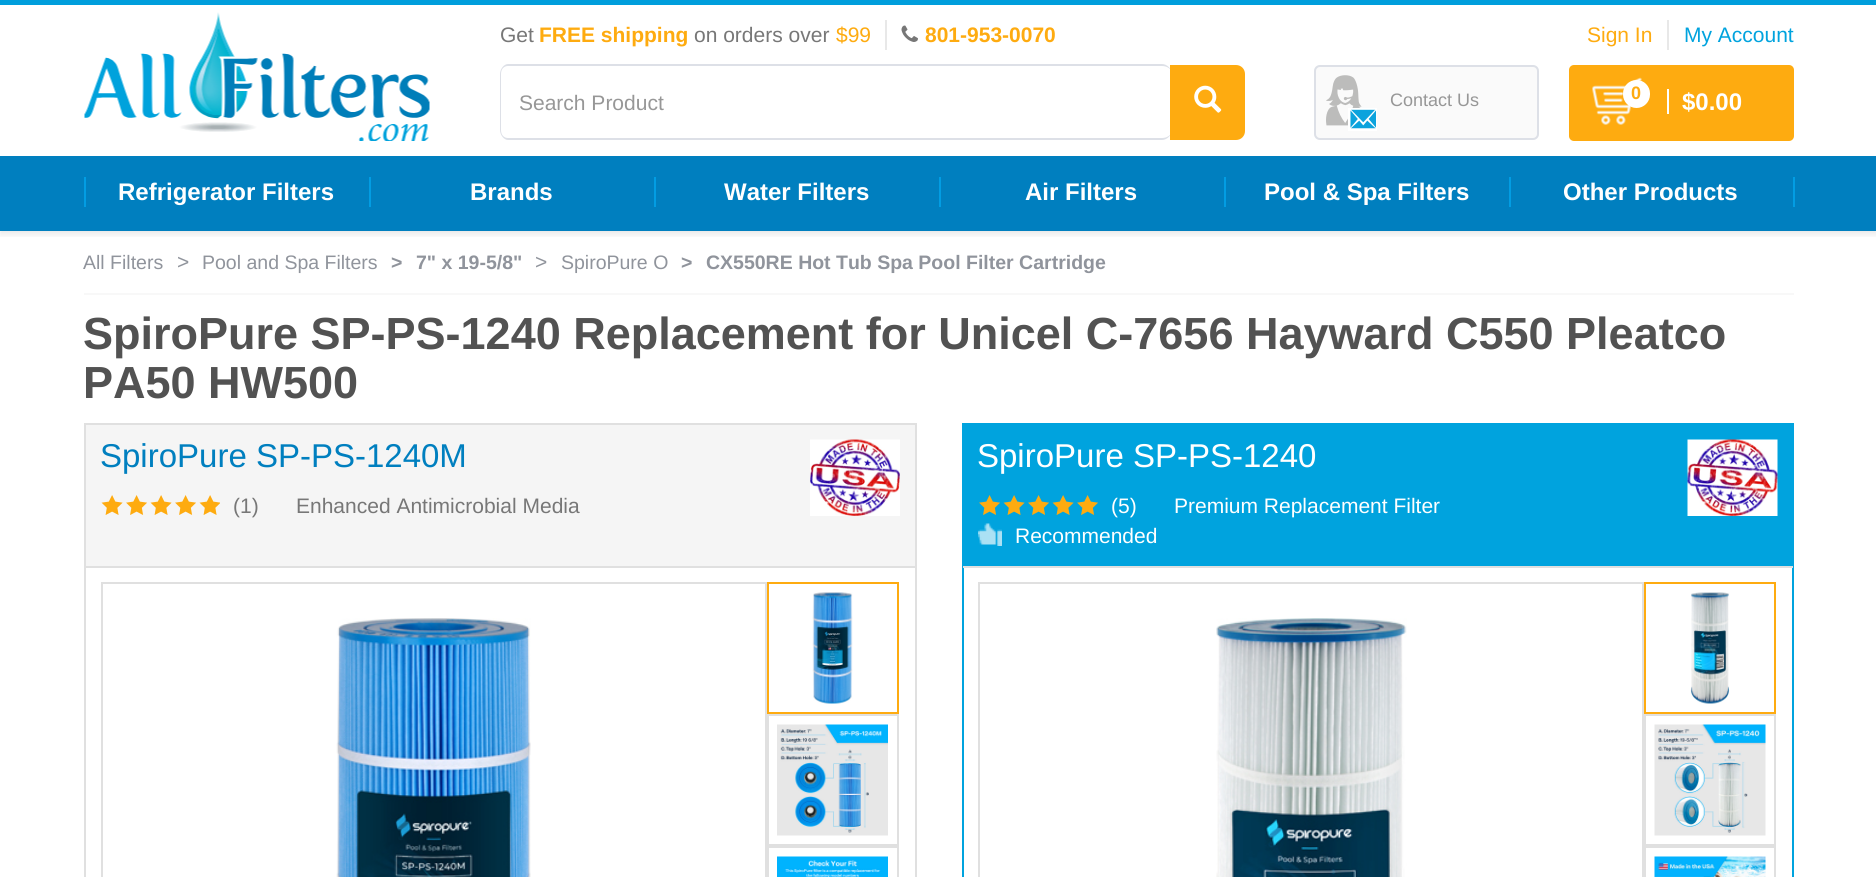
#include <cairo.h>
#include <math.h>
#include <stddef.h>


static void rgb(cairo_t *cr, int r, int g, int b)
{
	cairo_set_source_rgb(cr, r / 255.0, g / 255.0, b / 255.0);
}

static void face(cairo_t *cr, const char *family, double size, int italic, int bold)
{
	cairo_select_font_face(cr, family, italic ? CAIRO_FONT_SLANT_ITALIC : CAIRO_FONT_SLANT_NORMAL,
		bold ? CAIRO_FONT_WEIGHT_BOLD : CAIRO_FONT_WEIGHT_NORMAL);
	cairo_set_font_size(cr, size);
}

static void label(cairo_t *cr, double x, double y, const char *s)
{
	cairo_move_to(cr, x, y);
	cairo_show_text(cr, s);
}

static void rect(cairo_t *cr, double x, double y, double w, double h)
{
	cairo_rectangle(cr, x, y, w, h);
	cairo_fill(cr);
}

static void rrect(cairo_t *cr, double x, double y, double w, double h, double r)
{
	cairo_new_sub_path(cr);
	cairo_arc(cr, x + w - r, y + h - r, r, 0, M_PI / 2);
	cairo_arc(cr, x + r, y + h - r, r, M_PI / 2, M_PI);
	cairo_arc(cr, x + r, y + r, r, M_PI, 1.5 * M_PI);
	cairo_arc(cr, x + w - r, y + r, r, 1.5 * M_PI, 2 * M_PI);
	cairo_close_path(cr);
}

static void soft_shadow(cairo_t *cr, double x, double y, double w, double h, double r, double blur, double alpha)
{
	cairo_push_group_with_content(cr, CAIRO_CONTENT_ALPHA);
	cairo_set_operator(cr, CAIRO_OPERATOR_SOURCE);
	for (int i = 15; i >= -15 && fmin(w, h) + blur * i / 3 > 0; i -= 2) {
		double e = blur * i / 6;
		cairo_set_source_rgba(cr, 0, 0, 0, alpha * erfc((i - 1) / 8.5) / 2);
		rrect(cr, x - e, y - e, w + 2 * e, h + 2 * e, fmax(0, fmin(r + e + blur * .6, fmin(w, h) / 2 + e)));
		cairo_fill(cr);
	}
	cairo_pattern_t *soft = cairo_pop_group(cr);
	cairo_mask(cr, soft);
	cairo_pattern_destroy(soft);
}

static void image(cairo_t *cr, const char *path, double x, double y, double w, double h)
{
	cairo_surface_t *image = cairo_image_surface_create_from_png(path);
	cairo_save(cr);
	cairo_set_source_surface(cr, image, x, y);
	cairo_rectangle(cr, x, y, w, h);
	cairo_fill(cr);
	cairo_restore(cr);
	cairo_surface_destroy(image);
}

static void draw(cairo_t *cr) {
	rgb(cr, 255, 255, 255);
	cairo_paint(cr);
	cairo_save(cr);
	cairo_rectangle(cr, 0, 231, 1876, 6);
	cairo_clip(cr);
	rgb(cr, 0, 0, 0);
	soft_shadow(cr, 0, 3, 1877, 231, 0, 4, 0.1);
	cairo_restore(cr);
	rgb(cr, 0, 158, 220);
	rect(cr, 0, 0, 1876, 5);
	rgb(cr, 232, 232, 232);
	rect(cr, 885, 20, 2, 30);
	face(cr, "Arimo", 21, 0, 0);
	rgb(cr, 119, 119, 119);
	label(cr, 500, 42, "Get");
	face(cr, "Arimo", 21, 0, 1);
	rgb(cr, 254, 171, 16);
	label(cr, 539, 42, "FREE shipping");
	face(cr, "Arimo", 21, 0, 0);
	rgb(cr, 119, 119, 119);
	label(cr, 694, 42, "on orders over");
	rgb(cr, 254, 171, 16);
	label(cr, 836, 42, "$99");
	image(cr, "image0.png", 901, 25, 17, 17);
	face(cr, "Arimo", 21, 0, 1);
	label(cr, 925, 42, "801-953-0070");
	rgb(cr, 232, 232, 232);
	rect(cr, 1667, 20, 2, 30);
	face(cr, "Arimo", 21, 0, 0);
	rgb(cr, 254, 171, 16);
	label(cr, 1587, 42, "Sign In");
	rgb(cr, 0, 163, 222);
	label(cr, 1684, 42, "My Account");
	image(cr, "image1.png", 84, 12, 346, 129);
	rgb(cr, 221, 224, 231);
	cairo_set_fill_rule(cr, CAIRO_FILL_RULE_EVEN_ODD);
	cairo_new_path(cr);
	cairo_move_to(cr, 508, 64);
	cairo_line_to(cr, 1162, 64);
	cairo_curve_to(cr, 1167, 64, 1172, 69, 1172, 74);
	cairo_line_to(cr, 1172, 130);
	cairo_curve_to(cr, 1172, 135, 1167, 140, 1162, 140);
	cairo_line_to(cr, 508, 140);
	cairo_curve_to(cr, 504, 140, 500, 135, 500, 130);
	cairo_line_to(cr, 500, 74);
	cairo_curve_to(cr, 500, 69, 504, 64, 508, 64);
	cairo_close_path(cr);
	cairo_move_to(cr, 508, 66);
	cairo_line_to(cr, 1162, 66);
	cairo_curve_to(cr, 1167, 66, 1172, 69, 1172, 74);
	cairo_line_to(cr, 1172, 130);
	cairo_curve_to(cr, 1172, 135, 1167, 138, 1162, 138);
	cairo_line_to(cr, 508, 138);
	cairo_curve_to(cr, 504, 138, 501, 135, 501, 130);
	cairo_line_to(cr, 501, 74);
	cairo_curve_to(cr, 501, 69, 504, 66, 508, 66);
	cairo_close_path(cr);
	cairo_fill(cr);
	rgb(cr, 151, 151, 151);
	label(cr, 519, 110, "Search Product");
	rgb(cr, 254, 171, 16);
	cairo_new_path(cr);
	cairo_move_to(cr, 1171, 66);
	cairo_line_to(cr, 1236, 66);
	cairo_curve_to(cr, 1240.5, 66, 1244, 69.5, 1244, 74);
	cairo_line_to(cr, 1244, 131);
	cairo_curve_to(cr, 1244, 135.5, 1240.5, 139, 1236, 139);
	cairo_line_to(cr, 1171, 139);
	cairo_close_path(cr);
	cairo_fill_preserve(cr);
	cairo_stroke(cr);
	image(cr, "image2.png", 1194, 85, 28, 28);
	rgb(cr, 250, 250, 250);
	rrect(cr, 1314, 65, 225, 75, 6);
	cairo_fill(cr);
	image(cr, "image3.png", 1326, 75, 51, 56);
	rrect(cr, 1315, 66, 223, 73, 5);
	rgb(cr, 221, 224, 231);
	cairo_stroke(cr);
	face(cr, "Arimo", 18, 0, 0);
	rgb(cr, 151, 151, 151);
	label(cr, 1390, 106, "Contact Us");
	rgb(cr, 254, 171, 16);
	rrect(cr, 1569, 65, 225, 76, 5);
	cairo_fill(cr);
	image(cr, "image4.png", 1592, 77, 50, 48);
	rgb(cr, 255, 255, 255);
	rrect(cr, 1623, 80, 27, 28, 13.5);
	cairo_fill(cr);
	face(cr, "Arimo", 18, 0, 1);
	rgb(cr, 254, 171, 16);
	label(cr, 1631, 99, "0");
	face(cr, "Arimo", 24, 0, 1);
	rgb(cr, 255, 255, 255);
	label(cr, 1682, 110, "$0.00");
	rect(cr, 1667, 89, 2, 25);
	rgb(cr, 0, 127, 191);
	rect(cr, 0, 156, 1876, 75);
	rgb(cr, 2, 157, 227);
	rect(cr, 84, 177, 2, 30);
	rgb(cr, 255, 255, 255);
	label(cr, 118, 200, "Refrigerator Filters");
	rgb(cr, 2, 157, 227);
	rect(cr, 369, 177, 2, 30);
	rgb(cr, 255, 255, 255);
	label(cr, 470, 200, "Brands");
	rgb(cr, 2, 157, 227);
	rect(cr, 654, 177, 2, 30);
	rgb(cr, 255, 255, 255);
	label(cr, 724, 200, "Water Filters");
	rgb(cr, 2, 157, 227);
	rect(cr, 939, 177, 2, 30);
	rgb(cr, 255, 255, 255);
	label(cr, 1025, 200, "Air Filters");
	rgb(cr, 2, 157, 227);
	rect(cr, 1224, 177, 2, 30);
	rgb(cr, 255, 255, 255);
	label(cr, 1264, 200, "Pool & Spa Filters");
	rgb(cr, 2, 157, 227);
	rect(cr, 1793, 177, 2, 30);
	rect(cr, 1509, 177, 2, 30);
	rgb(cr, 255, 255, 255);
	label(cr, 1563, 200, "Other Products");
	rgb(cr, 248, 248, 248);
	rect(cr, 84, 293, 1710, 2);
	face(cr, "Arimo", 19.5, 0, 0);
	rgb(cr, 144, 148, 156);
	label(cr, 83, 269, "All Filters");
	face(cr, "Arimo", 21, 0, 0);
	label(cr, 177, 269, ">");
	face(cr, "Arimo", 19.5, 0, 0);
	label(cr, 202, 269, "Pool and Spa Filters");
	face(cr, "Arimo", 19.5, 0, 1);
	label(cr, 391, 269, ">");
	label(cr, 416, 269, "7\" x 19-5/8\"");
	face(cr, "Arimo", 21, 0, 0);
	label(cr, 535, 269, ">");
	face(cr, "Arimo", 19.5, 0, 0);
	label(cr, 561, 269, "SpiroPure O");
	face(cr, "Arimo", 19.5, 0, 1);
	label(cr, 681, 269, ">");
	label(cr, 706, 269, "CX550RE Hot Tub Spa Pool Filter Cartridge");
	face(cr, "Arimo", 45, 0, 1);
	rgb(cr, 82, 82, 82);
	label(cr, 83, 349, "SpiroPure SP-PS-1240 Replacement for Unicel C-7656 Hayward C550 Pleatco");
	label(cr, 83, 398, "PA50 HW500");
	cairo_rectangle(cr, 85, 424, 831, 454);
	rgb(cr, 224, 224, 224);
	cairo_stroke(cr);
	rgb(cr, 245, 245, 245);
	rect(cr, 86, 425, 829, 141);
	rgb(cr, 224, 224, 224);
	rect(cr, 86, 566, 829, 2);
	face(cr, "Arimo", 33, 0, 0);
	rgb(cr, 0, 127, 191);
	label(cr, 100, 467, "SpiroPure SP-PS-1240M");
	image(cr, "image5.png", 810, 439, 90, 77);
	image(cr, "image6.png", 101, 495, 119, 20);
	face(cr, "Arimo", 21, 0, 0);
	rgb(cr, 119, 119, 119);
	label(cr, 233, 513, "(1)");
	label(cr, 296, 513, "Enhanced Antimicrobial Media");
	cairo_rectangle(cr, 102, 583, 664, 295);
	rgb(cr, 224, 224, 224);
	cairo_stroke(cr);
	image(cr, "image7.png", 336, 618, 195, 259);
	cairo_rectangle(cr, 768, 583, 130, 130);
	rgb(cr, 254, 171, 16);
	cairo_stroke(cr);
	image(cr, "image8.png", 812, 592, 41, 112);
	cairo_rectangle(cr, 768, 715, 130, 130);
	rgb(cr, 224, 224, 224);
	cairo_stroke(cr);
	image(cr, "image9.png", 777, 724, 111, 112);
	cairo_rectangle(cr, 768, 847, 130, 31);
	cairo_stroke(cr);
	image(cr, "image10.png", 777, 856, 111, 21);
	cairo_rectangle(cr, 963, 424, 830, 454);
	rgb(cr, 0, 163, 222);
	cairo_stroke(cr);
	rect(cr, 964, 425, 828, 141);
	rgb(cr, 224, 224, 224);
	rect(cr, 963, 566, 830, 2);
	face(cr, "Arimo", 33, 0, 0);
	rgb(cr, 255, 255, 255);
	label(cr, 977, 467, "SpiroPure SP-PS-1240");
	image(cr, "image11.png", 1687, 439, 91, 77);
	image(cr, "image12.png", 979, 495, 119, 20);
	face(cr, "Arimo", 21, 0, 0);
	label(cr, 1111, 513, "(5)");
	label(cr, 1174, 513, "Premium Replacement Filter");
	image(cr, "image13.png", 978, 523, 24, 23);
	label(cr, 1015, 543, "Recommended");
	cairo_rectangle(cr, 979, 583, 664, 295);
	rgb(cr, 224, 224, 224);
	cairo_stroke(cr);
	image(cr, "image14.png", 1216, 618, 191, 259);
	cairo_rectangle(cr, 1645, 583, 130, 130);
	rgb(cr, 254, 171, 16);
	cairo_stroke(cr);
	image(cr, "image15.png", 1690, 592, 40, 112);
	cairo_rectangle(cr, 1645, 715, 130, 130);
	rgb(cr, 224, 224, 224);
	cairo_stroke(cr);
	image(cr, "image16.png", 1654, 724, 112, 112);
	cairo_rectangle(cr, 1645, 847, 130, 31);
	cairo_stroke(cr);
	image(cr, "image17.png", 1654, 856, 112, 21);
}

int main(void) {
	cairo_surface_t *surface = cairo_image_surface_create(CAIRO_FORMAT_RGB24, 1876, 877);
	cairo_t *cr = cairo_create(surface);
	cairo_font_options_t *options = cairo_font_options_create();
	cairo_font_options_set_hint_metrics(options, CAIRO_HINT_METRICS_OFF);
	cairo_font_options_set_hint_style(options, CAIRO_HINT_STYLE_NONE);
	cairo_set_font_options(cr, options);
	cairo_set_miter_limit(cr, 4);
	draw(cr);
	cairo_surface_write_to_png(surface, "render.png");
	cairo_font_options_destroy(options);
	cairo_destroy(cr);
	cairo_surface_destroy(surface);
	return 0;
}
